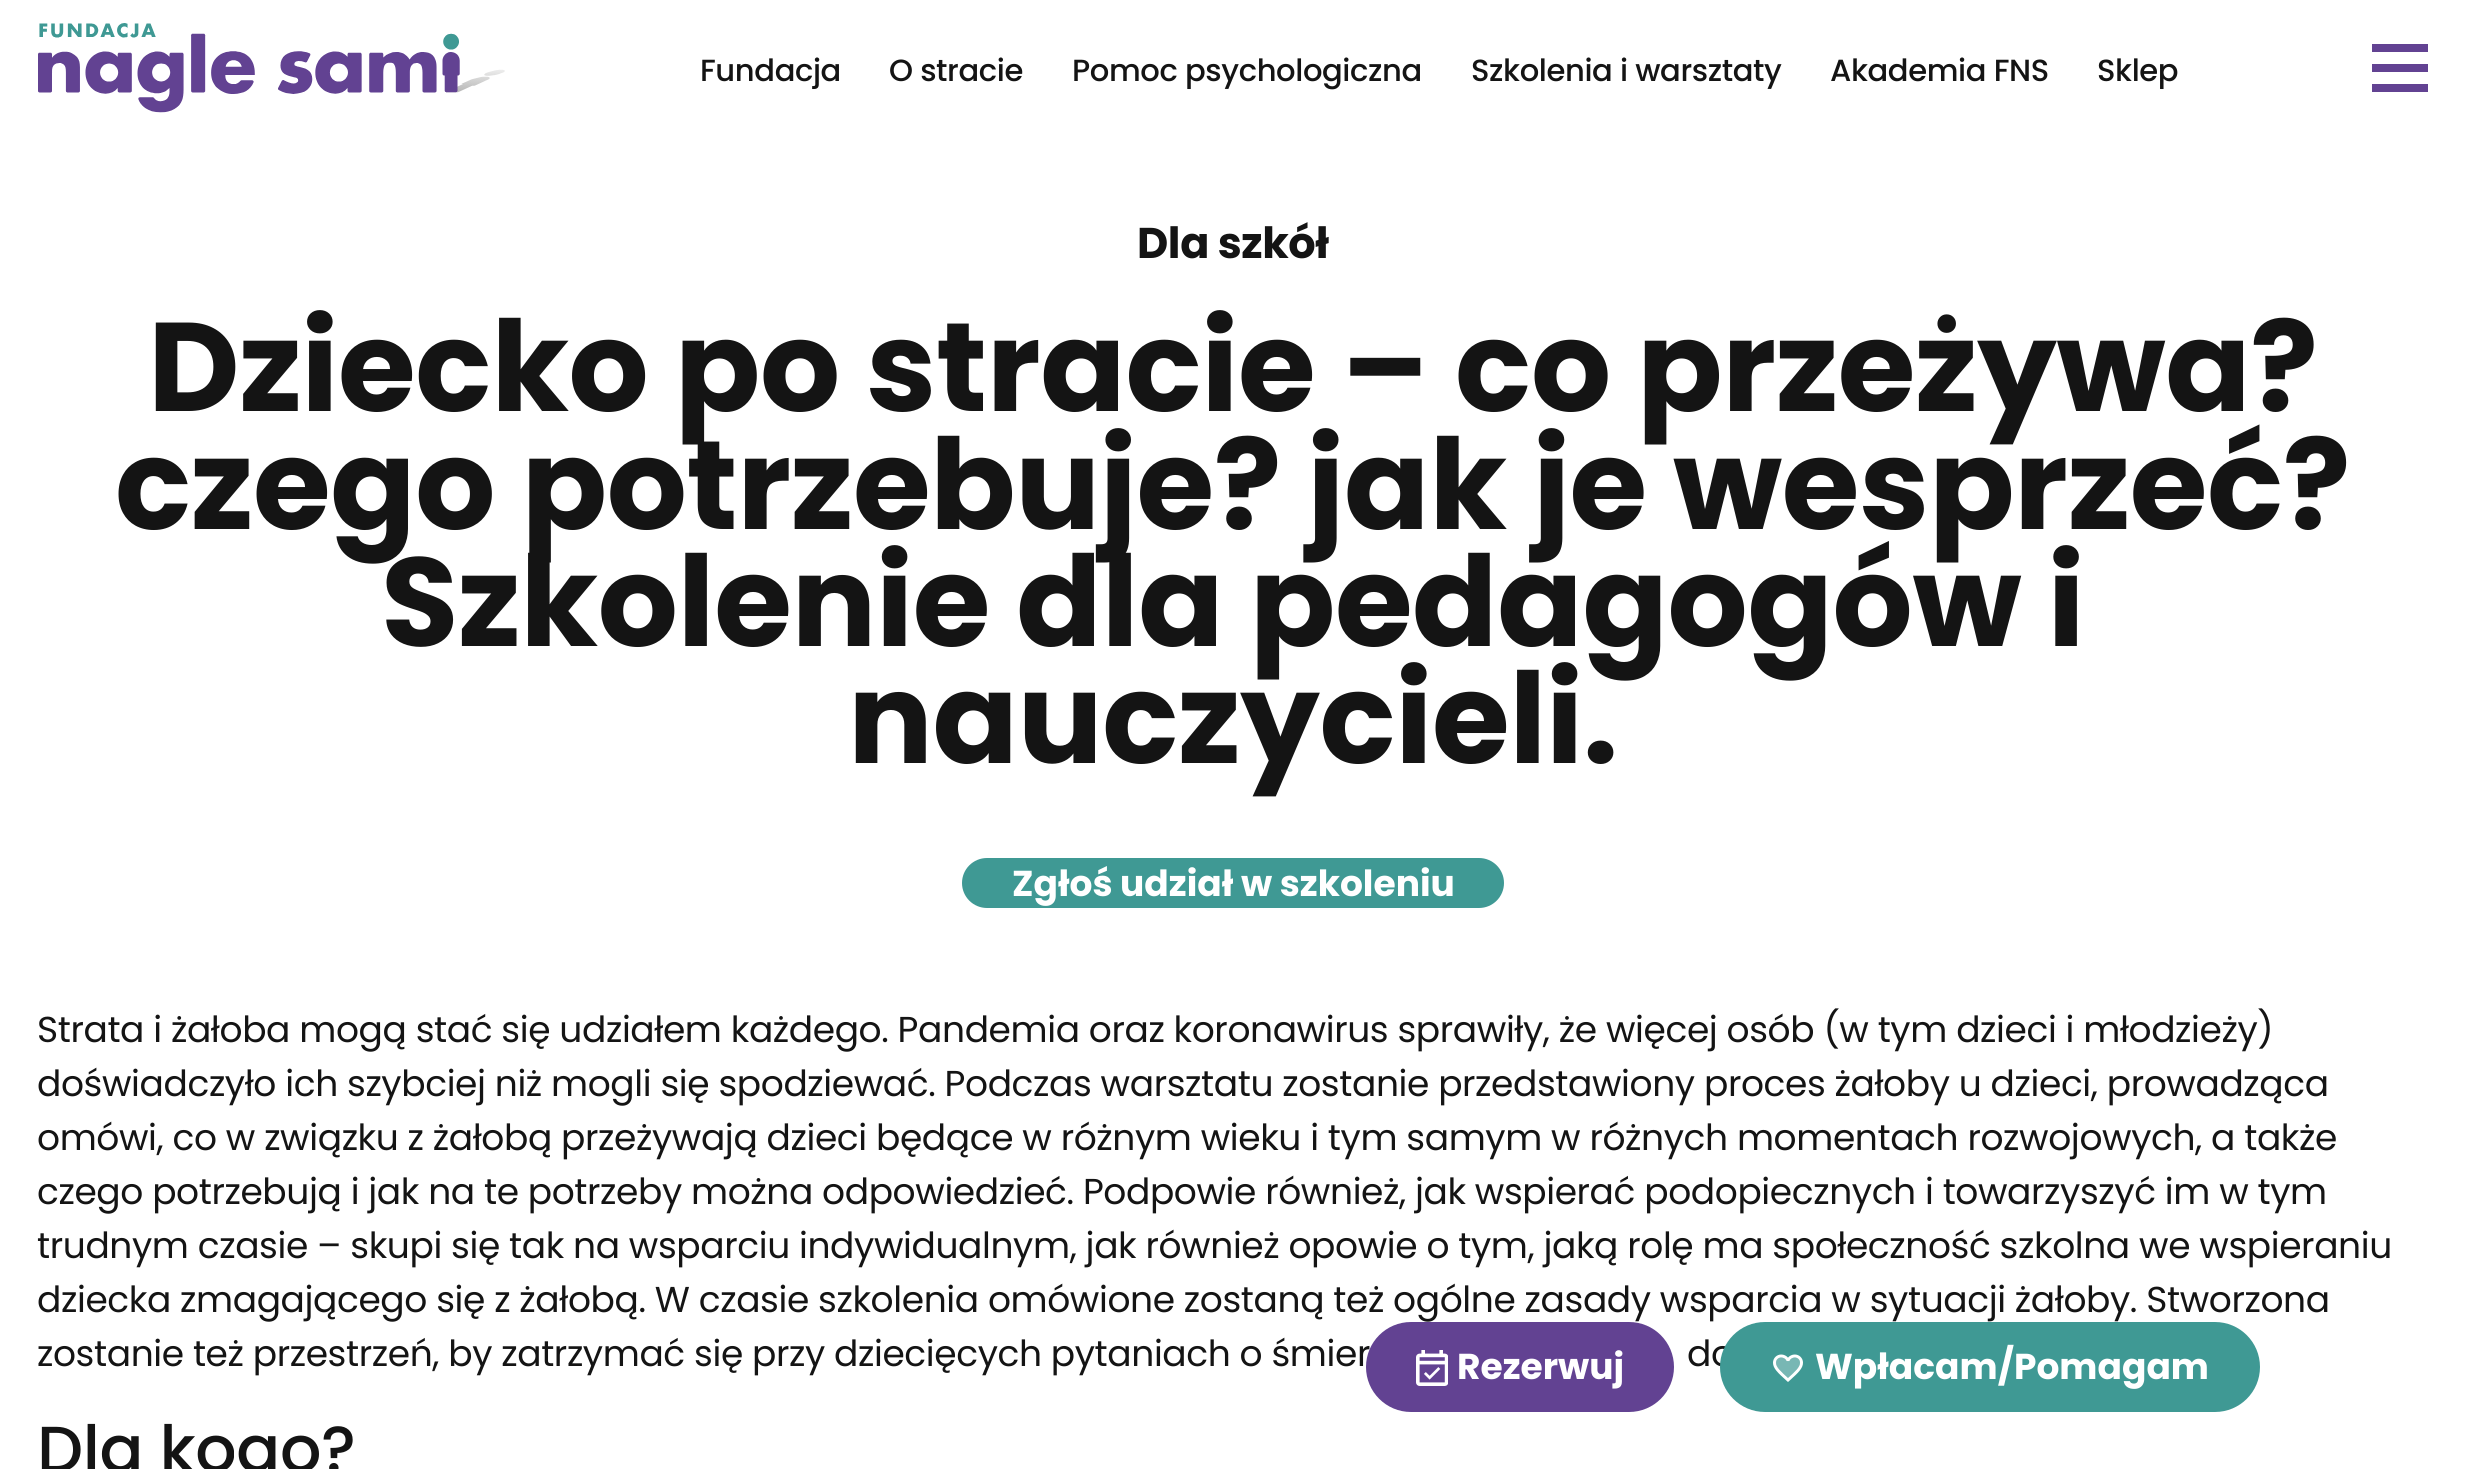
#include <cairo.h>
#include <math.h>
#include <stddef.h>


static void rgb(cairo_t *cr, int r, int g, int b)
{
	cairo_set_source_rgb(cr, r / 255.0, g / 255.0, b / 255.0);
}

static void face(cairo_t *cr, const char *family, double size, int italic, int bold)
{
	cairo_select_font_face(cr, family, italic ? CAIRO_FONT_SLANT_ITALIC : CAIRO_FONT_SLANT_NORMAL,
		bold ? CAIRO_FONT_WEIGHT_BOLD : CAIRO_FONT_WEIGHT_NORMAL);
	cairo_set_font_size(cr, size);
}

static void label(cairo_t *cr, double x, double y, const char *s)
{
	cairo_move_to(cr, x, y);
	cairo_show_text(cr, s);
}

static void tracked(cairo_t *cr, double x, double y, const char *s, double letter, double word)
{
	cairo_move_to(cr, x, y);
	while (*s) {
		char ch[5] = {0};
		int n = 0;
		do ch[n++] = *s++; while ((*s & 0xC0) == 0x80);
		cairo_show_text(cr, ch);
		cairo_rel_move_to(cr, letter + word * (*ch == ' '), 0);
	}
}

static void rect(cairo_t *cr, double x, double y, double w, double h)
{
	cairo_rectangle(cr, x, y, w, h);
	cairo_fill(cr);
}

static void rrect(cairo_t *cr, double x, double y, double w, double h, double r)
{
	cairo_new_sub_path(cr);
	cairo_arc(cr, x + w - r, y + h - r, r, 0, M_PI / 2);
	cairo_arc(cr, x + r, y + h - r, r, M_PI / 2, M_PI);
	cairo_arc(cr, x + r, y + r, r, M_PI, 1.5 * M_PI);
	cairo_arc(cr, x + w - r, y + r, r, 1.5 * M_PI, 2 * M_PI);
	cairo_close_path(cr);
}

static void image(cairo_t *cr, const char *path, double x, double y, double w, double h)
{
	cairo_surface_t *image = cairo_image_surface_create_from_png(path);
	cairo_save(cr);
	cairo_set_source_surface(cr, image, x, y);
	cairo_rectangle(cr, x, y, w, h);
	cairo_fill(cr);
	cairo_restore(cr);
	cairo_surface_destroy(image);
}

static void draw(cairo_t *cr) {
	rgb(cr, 255, 255, 255);
	cairo_paint(cr);
	image(cr, "image0.png", 38, 23, 467, 90);
	face(cr, "Poppins Medium", 30.6, 0, 0);
	rgb(cr, 20, 20, 20);
	tracked(cr, 700, 81, "Fundacja", -0.4, 0);
	tracked(cr, 889, 81, "O stracie", -0.4, 0);
	tracked(cr, 1072, 81, "Pomoc psychologiczna", -0.4, 0);
	tracked(cr, 1471, 81, "Szkolenia i warsztaty", -0.4, 0);
	tracked(cr, 1830, 81, "Akademia FNS", -0.4, 0);
	tracked(cr, 2097, 81, "Sklep", -0.4, 0);
	rgb(cr, 98, 66, 146);
	rect(cr, 2372, 64, 56, 8);
	rect(cr, 2372, 44, 56, 8);
	rect(cr, 2372, 84, 56, 8);
	face(cr, "Poppins", 43, 0, 1);
	rgb(cr, 20, 20, 20);
	tracked(cr, 1137, 258, "Dla szkół", -0.4, 0);
	face(cr, "Poppins", 126, 0, 1);
	tracked(cr, 148, 411, "Dziecko po stracie – co przeżywa?", -0.4, 0);
	tracked(cr, 115, 529, "czego potrzebuje? jak je wesprzeć?", -0.4, 0);
	tracked(cr, 381, 646, "Szkolenie dla pedagogów i", -0.4, 0);
	tracked(cr, 848, 763, "nauczycieli.", -0.4, 0);
	rgb(cr, 63, 153, 148);
	rrect(cr, 962, 858, 542, 50, 25);
	cairo_fill(cr);
	face(cr, "Poppins", 36, 0, 1);
	rgb(cr, 255, 255, 255);
	label(cr, 1012, 896, "Zgłoś udział w szkoleniu");
	face(cr, "Poppins", 36, 0, 0);
	rgb(cr, 20, 20, 20);
	tracked(cr, 37, 1042, "Strata i żałoba mogą stać się udziałem każdego. Pandemia oraz koronawirus sprawiły, że więcej osób (w tym dzieci i młodzieży)", -0.4, 0);
	tracked(cr, 37, 1096, "doświadczyło ich szybciej niż mogli się spodziewać. Podczas warsztatu zostanie przedstawiony proces żałoby u dzieci, prowadząca", -0.4, 0);
	tracked(cr, 37, 1150, "omówi, co w związku z żałobą przeżywają dzieci będące w różnym wieku i tym samym w różnych momentach rozwojowych, a także", -0.4, 0);
	tracked(cr, 37, 1204, "czego potrzebują i jak na te potrzeby można odpowiedzieć. Podpowie również, jak wspierać podopiecznych i towarzyszyć im w tym", -0.4, 0);
	tracked(cr, 37, 1258, "trudnym czasie – skupi się tak na wsparciu indywidualnym, jak również opowie o tym, jaką rolę ma społeczność szkolna we wspieraniu", -0.4, 0);
	tracked(cr, 37, 1312, "dziecka zmagającego się z żałobą. W czasie szkolenia omówione zostaną też ogólne zasady wsparcia w sytuacji żałoby. Stworzona", -0.4, 0);
	tracked(cr, 37, 1366, "zostanie też przestrzeń, by zatrzymać się przy dziecięcych pytaniach o śmier", -0.4, 0);
	tracked(cr, 1687, 1366, "do", -0.4, 0);
	face(cr, "Poppins Medium", 65, 0, 0);
	tracked(cr, 37, 1472, "Dla kogo?", -0.4, 0);
	rgb(cr, 98, 66, 146);
	rrect(cr, 1366, 1322, 308, 90, 45);
	cairo_fill(cr);
	image(cr, "image1.png", 1416, 1350, 32, 36);
	face(cr, "Poppins", 36, 0, 1);
	rgb(cr, 255, 255, 255);
	label(cr, 1457, 1379, "Rezerwuj");
	rgb(cr, 63, 153, 148);
	rrect(cr, 1720, 1322, 540, 90, 45);
	cairo_fill(cr);
	image(cr, "image2.png", 1773, 1354, 30, 28);
	rgb(cr, 255, 255, 255);
	label(cr, 1815, 1379, "Wpłacam/Pomagam");
}

int main(void) {
	cairo_surface_t *surface = cairo_image_surface_create(CAIRO_FORMAT_RGB24, 2465, 1469);
	cairo_t *cr = cairo_create(surface);
	cairo_font_options_t *options = cairo_font_options_create();
	cairo_font_options_set_hint_metrics(options, CAIRO_HINT_METRICS_OFF);
	cairo_font_options_set_hint_style(options, CAIRO_HINT_STYLE_NONE);
	cairo_set_font_options(cr, options);
	cairo_set_miter_limit(cr, 4);
	draw(cr);
	cairo_surface_write_to_png(surface, "render.png");
	cairo_font_options_destroy(options);
	cairo_destroy(cr);
	cairo_surface_destroy(surface);
	return 0;
}
